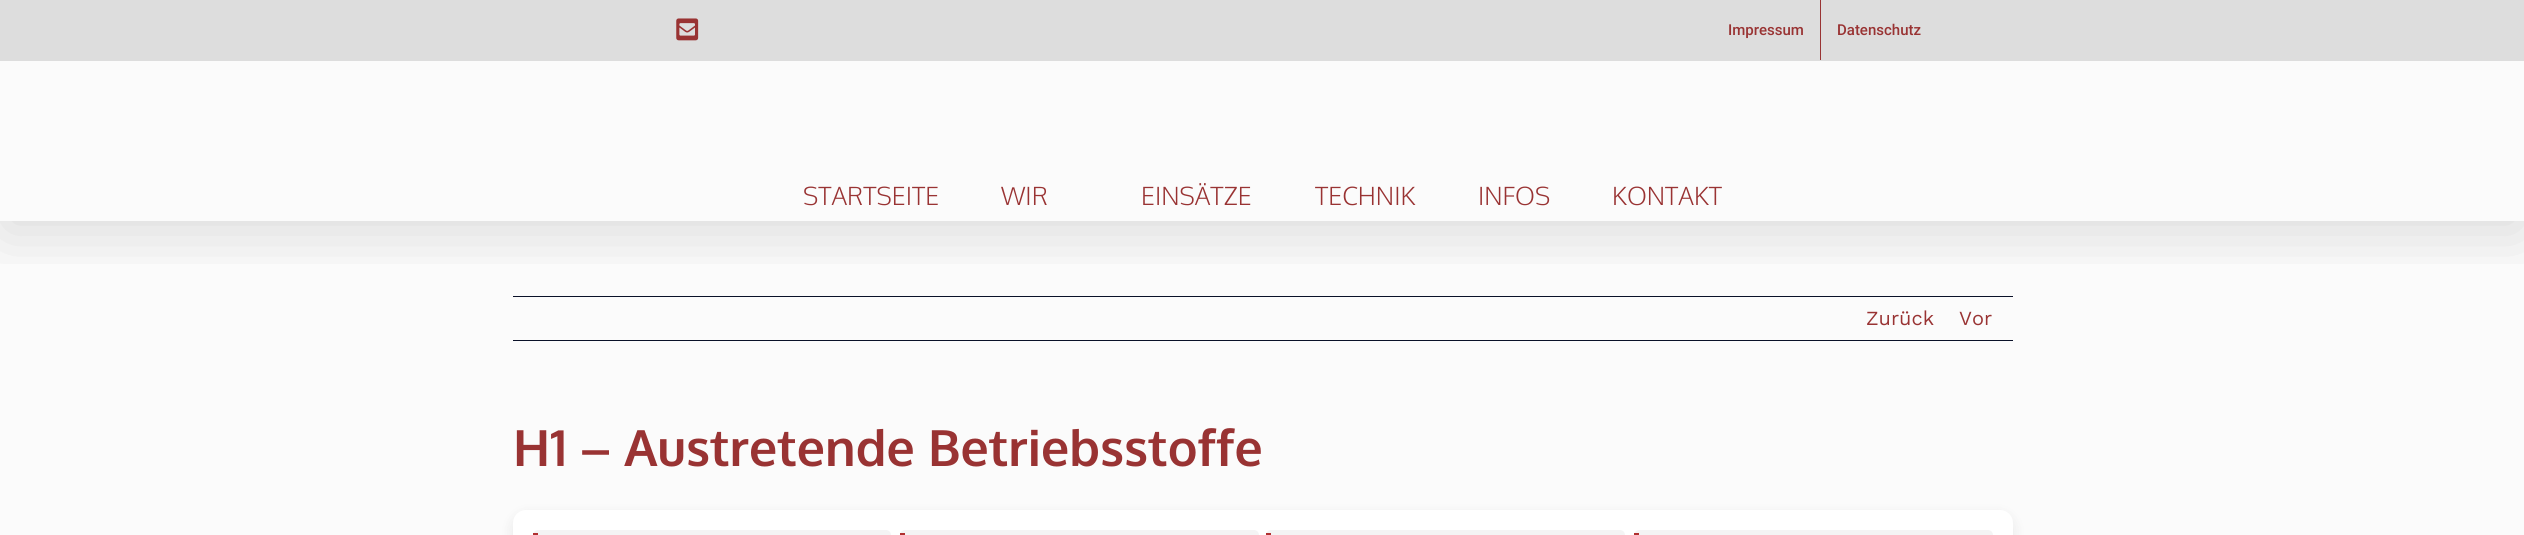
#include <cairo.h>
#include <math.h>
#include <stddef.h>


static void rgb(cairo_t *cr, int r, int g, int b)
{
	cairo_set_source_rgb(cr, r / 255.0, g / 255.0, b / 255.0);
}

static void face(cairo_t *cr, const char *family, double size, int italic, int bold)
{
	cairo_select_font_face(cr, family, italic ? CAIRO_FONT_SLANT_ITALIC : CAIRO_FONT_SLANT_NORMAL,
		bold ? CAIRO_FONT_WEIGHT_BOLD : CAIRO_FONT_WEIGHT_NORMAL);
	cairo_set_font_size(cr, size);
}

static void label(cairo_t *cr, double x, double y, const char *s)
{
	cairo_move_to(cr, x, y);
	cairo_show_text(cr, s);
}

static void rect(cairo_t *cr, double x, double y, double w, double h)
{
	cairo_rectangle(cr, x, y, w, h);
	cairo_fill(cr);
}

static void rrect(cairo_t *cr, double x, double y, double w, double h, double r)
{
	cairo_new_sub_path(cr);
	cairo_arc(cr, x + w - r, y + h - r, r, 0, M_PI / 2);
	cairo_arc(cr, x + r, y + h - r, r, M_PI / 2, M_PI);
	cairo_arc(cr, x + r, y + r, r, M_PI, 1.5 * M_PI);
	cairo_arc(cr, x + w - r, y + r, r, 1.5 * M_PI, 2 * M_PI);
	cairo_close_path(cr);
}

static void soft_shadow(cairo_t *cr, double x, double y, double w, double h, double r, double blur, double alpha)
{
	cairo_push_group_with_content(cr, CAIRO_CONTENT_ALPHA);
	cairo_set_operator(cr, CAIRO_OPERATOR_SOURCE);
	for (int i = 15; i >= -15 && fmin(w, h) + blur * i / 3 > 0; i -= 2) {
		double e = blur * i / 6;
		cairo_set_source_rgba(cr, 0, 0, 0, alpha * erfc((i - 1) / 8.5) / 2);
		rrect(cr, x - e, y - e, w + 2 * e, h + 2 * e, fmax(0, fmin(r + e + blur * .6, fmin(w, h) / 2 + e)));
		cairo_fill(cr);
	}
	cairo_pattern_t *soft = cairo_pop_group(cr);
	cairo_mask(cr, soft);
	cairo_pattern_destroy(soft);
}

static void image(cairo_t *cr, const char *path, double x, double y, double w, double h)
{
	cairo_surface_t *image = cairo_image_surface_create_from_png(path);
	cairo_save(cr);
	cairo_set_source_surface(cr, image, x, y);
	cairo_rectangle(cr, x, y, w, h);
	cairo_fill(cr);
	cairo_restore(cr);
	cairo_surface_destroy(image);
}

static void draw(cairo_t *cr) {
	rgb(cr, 251, 251, 251);
	cairo_paint(cr);
	rgb(cr, 10, 17, 40);
	rect(cr, 513, 296, 1500, 1);
	cairo_save(cr);
	cairo_rectangle(cr, 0, 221, 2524, 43);
	cairo_clip(cr);
	rgb(cr, 0, 0, 0);
	soft_shadow(cr, 3, 15, 2520, 216, 0, 31, 0.14);
	cairo_restore(cr);
	rgb(cr, 221, 221, 221);
	rect(cr, 0, 0, 2524, 61);
	image(cr, "image0.png", 676, 18, 23, 23);
	face(cr, "Roboto Medium", 15, 0, 0);
	rgb(cr, 153, 51, 51);
	label(cr, 1728, 35, "Impressum");
	rect(cr, 1820, 0, 1, 60);
	label(cr, 1837, 35, "Datenschutz");
	face(cr, "Oxygen Light", 25, 0, 0);
	label(cr, 803, 205, "STARTSEITE");
	label(cr, 1001, 205, "WIR");
	label(cr, 1141, 205, "EINSÄTZE");
	label(cr, 1315, 205, "TECHNIK");
	label(cr, 1478, 205, "INFOS");
	label(cr, 1612, 205, "KONTAKT");
	rgb(cr, 10, 17, 40);
	rect(cr, 513, 340, 1500, 1);
	face(cr, "Work Sans", 20, 0, 0);
	rgb(cr, 153, 51, 51);
	label(cr, 1866, 325, "Zurück");
	label(cr, 1959, 325, "Vor");
	face(cr, "Oxygen", 50, 0, 1);
	label(cr, 513, 466, "H1 – Austretende Betriebsstoffe");
	rgb(cr, 0, 0, 0);
	soft_shadow(cr, 513, 515, 1500, 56, 13, 7.5, 0.08);
	rgb(cr, 255, 255, 255);
	rrect(cr, 513, 510, 1500, 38, 13);
	cairo_fill(cr);
	rgb(cr, 244, 244, 244);
	rrect(cr, 533, 530, 358, 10, 5);
	cairo_fill(cr);
	rgb(cr, 176, 48, 48);
	rect(cr, 533, 533, 5, 2);
	rgb(cr, 244, 244, 244);
	rrect(cr, 900, 530, 359, 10, 5);
	cairo_fill(cr);
	rgb(cr, 176, 48, 48);
	rect(cr, 900, 533, 5, 2);
	rgb(cr, 244, 244, 244);
	rrect(cr, 1266, 530, 359, 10, 5);
	cairo_fill(cr);
	rgb(cr, 176, 48, 48);
	rect(cr, 1266, 533, 5, 2);
	rgb(cr, 244, 244, 244);
	rrect(cr, 1634, 530, 359, 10, 5);
	cairo_fill(cr);
	rgb(cr, 176, 48, 48);
	rect(cr, 1634, 533, 5, 2);
}

int main(void) {
	cairo_surface_t *surface = cairo_image_surface_create(CAIRO_FORMAT_RGB24, 2524, 535);
	cairo_t *cr = cairo_create(surface);
	cairo_font_options_t *options = cairo_font_options_create();
	cairo_font_options_set_hint_metrics(options, CAIRO_HINT_METRICS_OFF);
	cairo_font_options_set_hint_style(options, CAIRO_HINT_STYLE_NONE);
	cairo_set_font_options(cr, options);
	cairo_set_miter_limit(cr, 4);
	draw(cr);
	cairo_surface_write_to_png(surface, "render.png");
	cairo_font_options_destroy(options);
	cairo_destroy(cr);
	cairo_surface_destroy(surface);
	return 0;
}
